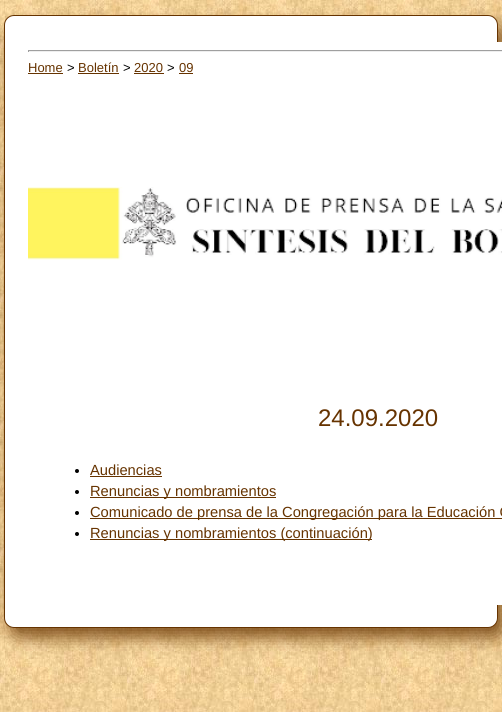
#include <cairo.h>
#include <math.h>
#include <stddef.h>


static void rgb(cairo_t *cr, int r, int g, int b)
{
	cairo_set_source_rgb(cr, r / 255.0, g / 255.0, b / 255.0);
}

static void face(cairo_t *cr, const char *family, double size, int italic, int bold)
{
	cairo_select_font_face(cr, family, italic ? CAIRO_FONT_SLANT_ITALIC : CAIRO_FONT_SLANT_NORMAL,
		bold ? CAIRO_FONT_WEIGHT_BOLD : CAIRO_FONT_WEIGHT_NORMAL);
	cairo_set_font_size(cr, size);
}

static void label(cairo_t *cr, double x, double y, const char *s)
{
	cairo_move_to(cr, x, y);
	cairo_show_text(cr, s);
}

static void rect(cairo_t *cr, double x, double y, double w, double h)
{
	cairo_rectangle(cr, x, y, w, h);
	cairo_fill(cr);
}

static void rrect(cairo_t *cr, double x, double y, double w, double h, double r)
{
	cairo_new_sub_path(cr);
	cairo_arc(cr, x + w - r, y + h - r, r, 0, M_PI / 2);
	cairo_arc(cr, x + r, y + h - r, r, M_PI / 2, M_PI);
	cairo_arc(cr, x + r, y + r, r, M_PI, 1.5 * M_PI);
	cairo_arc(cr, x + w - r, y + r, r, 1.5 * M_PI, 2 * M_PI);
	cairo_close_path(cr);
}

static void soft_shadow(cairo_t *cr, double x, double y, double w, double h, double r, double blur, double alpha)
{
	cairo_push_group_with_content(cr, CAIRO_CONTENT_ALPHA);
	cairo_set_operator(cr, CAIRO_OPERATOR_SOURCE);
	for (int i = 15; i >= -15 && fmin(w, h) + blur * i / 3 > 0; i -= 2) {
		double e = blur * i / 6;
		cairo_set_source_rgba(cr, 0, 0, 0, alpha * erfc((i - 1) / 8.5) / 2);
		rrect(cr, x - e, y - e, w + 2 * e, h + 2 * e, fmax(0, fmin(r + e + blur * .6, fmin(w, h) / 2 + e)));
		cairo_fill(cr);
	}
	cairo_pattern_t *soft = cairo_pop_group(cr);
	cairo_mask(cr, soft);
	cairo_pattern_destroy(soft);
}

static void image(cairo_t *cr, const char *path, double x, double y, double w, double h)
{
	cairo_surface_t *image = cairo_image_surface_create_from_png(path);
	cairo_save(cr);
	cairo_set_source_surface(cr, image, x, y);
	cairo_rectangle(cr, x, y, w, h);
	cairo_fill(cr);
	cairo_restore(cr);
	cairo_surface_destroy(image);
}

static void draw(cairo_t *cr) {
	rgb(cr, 255, 255, 255);
	cairo_paint(cr);
	image(cr, "image0.png", 0, 0, 502, 712);
	rgb(cr, 102, 51, 0);
	soft_shadow(cr, 10, 25, 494, 613, 10, 8.5, 0.8);
	rgb(cr, 255, 255, 255);
	rrect(cr, 4.5, 15.5, 493, 612, 9.5);
	cairo_fill_preserve(cr);
	rgb(cr, 102, 51, 0);
	cairo_set_line_width(cr, 1);
	cairo_stroke(cr);
	rgb(cr, 255, 255, 255);
	rect(cr, 497, 42, 5, 563);
	rgb(cr, 159, 159, 159);
	rect(cr, 28, 50, 474, 1);
	rgb(cr, 238, 238, 238);
	rect(cr, 28, 51, 474, 1);
	rgb(cr, 159, 159, 159);
	rect(cr, 28, 50, 1, 2);
	face(cr, "Liberation Sans", 13, 0, 0);
	rgb(cr, 102, 51, 0);
	label(cr, 28, 72, "Home");
	rect(cr, 28, 73, 35, 1);
	rgb(cr, 0, 0, 0);
	label(cr, 67, 72, ">");
	rgb(cr, 102, 51, 0);
	label(cr, 78, 72, "Boletín");
	rect(cr, 78, 73, 41, 1);
	rgb(cr, 0, 0, 0);
	label(cr, 123, 72, ">");
	rgb(cr, 102, 51, 0);
	label(cr, 134, 72, "2020");
	rect(cr, 134, 73, 30, 1);
	rgb(cr, 0, 0, 0);
	label(cr, 167, 72, ">");
	rgb(cr, 102, 51, 0);
	label(cr, 179, 72, "09");
	rect(cr, 179, 73, 14, 1);
	image(cr, "image1.png", 28, 187, 474, 73);
	face(cr, "Liberation Sans", 24, 0, 0);
	label(cr, 318, 426, "24.09.2020");
	rgb(cr, 0, 0, 0);
	cairo_new_path(cr);
	cairo_arc(cr, 77, 471, 2, 0, 2 * M_PI);
	cairo_fill(cr);
	face(cr, "Liberation Sans", 14.7, 0, 0);
	rgb(cr, 102, 51, 0);
	label(cr, 90, 475, "Audiencias");
	rect(cr, 90, 476, 72, 1);
	rgb(cr, 0, 0, 0);
	cairo_new_path(cr);
	cairo_arc(cr, 77, 492, 2, 0, 2 * M_PI);
	cairo_fill(cr);
	rgb(cr, 102, 51, 0);
	rect(cr, 90, 497, 186, 1);
	label(cr, 90, 496, "Renuncias y nombramientos");
	rgb(cr, 0, 0, 0);
	cairo_new_path(cr);
	cairo_arc(cr, 77, 513, 2, 0, 2 * M_PI);
	cairo_fill(cr);
	rgb(cr, 102, 51, 0);
	rect(cr, 90, 518, 412, 1);
	label(cr, 90, 517, "Comunicado de prensa de la Congregación para la Educación C");
	rgb(cr, 0, 0, 0);
	cairo_new_path(cr);
	cairo_arc(cr, 77, 534, 2, 0, 2 * M_PI);
	cairo_fill(cr);
	rgb(cr, 102, 51, 0);
	rect(cr, 90, 539, 282, 1);
	label(cr, 90, 538, "Renuncias y nombramientos (continuación)");
}

int main(void) {
	cairo_surface_t *surface = cairo_image_surface_create(CAIRO_FORMAT_RGB24, 502, 712);
	cairo_t *cr = cairo_create(surface);
	cairo_font_options_t *options = cairo_font_options_create();
	cairo_font_options_set_hint_metrics(options, CAIRO_HINT_METRICS_OFF);
	cairo_font_options_set_hint_style(options, CAIRO_HINT_STYLE_NONE);
	cairo_set_font_options(cr, options);
	cairo_set_miter_limit(cr, 4);
	draw(cr);
	cairo_surface_write_to_png(surface, "render.png");
	cairo_font_options_destroy(options);
	cairo_destroy(cr);
	cairo_surface_destroy(surface);
	return 0;
}
